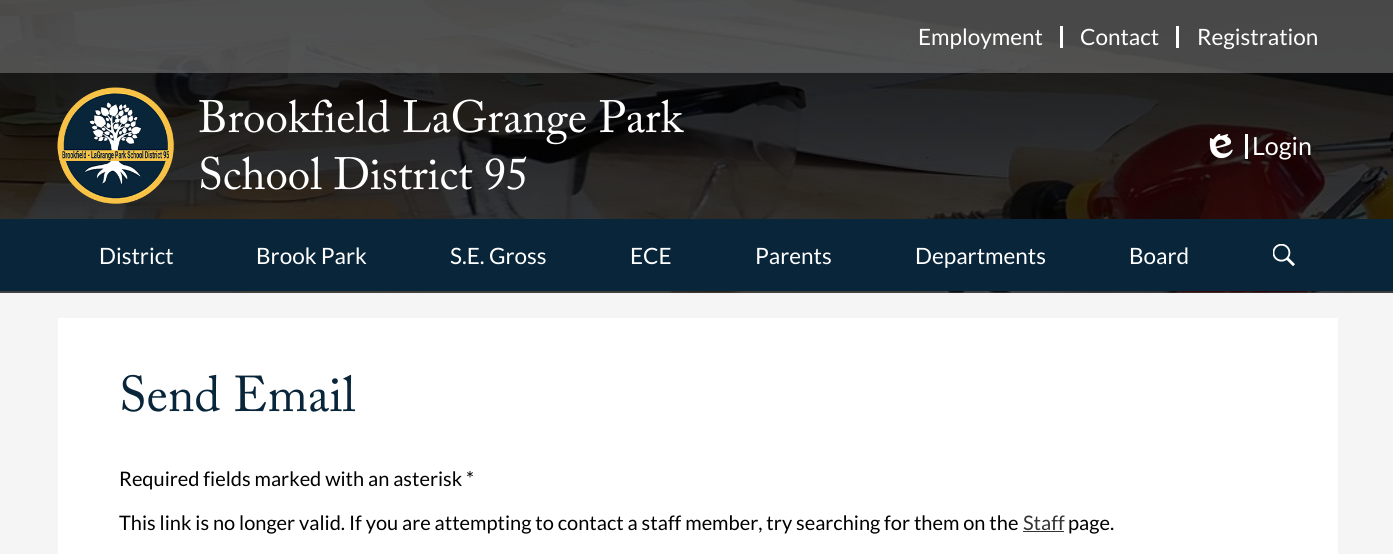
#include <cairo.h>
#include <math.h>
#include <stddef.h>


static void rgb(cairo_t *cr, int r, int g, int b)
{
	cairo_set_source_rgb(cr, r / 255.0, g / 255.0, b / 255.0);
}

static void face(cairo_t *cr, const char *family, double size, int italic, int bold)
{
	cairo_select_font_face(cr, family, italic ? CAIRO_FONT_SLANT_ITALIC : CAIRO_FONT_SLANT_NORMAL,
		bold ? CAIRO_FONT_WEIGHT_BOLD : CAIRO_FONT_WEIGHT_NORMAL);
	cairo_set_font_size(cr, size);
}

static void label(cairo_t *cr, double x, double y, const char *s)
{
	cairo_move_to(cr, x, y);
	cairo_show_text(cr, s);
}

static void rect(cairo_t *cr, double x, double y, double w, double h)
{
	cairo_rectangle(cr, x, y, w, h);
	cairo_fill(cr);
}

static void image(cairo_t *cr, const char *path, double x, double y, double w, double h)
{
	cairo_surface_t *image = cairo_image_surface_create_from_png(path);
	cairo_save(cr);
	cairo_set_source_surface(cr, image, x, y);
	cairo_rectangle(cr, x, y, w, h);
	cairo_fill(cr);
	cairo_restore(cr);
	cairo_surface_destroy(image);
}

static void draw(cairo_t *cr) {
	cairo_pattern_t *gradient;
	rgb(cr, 245, 245, 245);
	cairo_paint(cr);
	image(cr, "image0.png", 0, 0, 1393, 293);
	gradient = cairo_pattern_create_linear(697, 0, 697, 293);
	cairo_pattern_add_color_stop_rgba(gradient, 0, 0, 0, 0, 0.9);
	cairo_pattern_add_color_stop_rgba(gradient, 1, 0, 0, 0, 0.7);
	cairo_set_source(cr, gradient);
	cairo_pattern_destroy(gradient);
	rect(cr, 0, 0, 1393, 293);
	image(cr, "image1.png", 57, 87, 117, 117);
	face(cr, "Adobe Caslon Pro", 45, 0, 0);
	rgb(cr, 255, 255, 255);
	label(cr, 198, 132, "Brookfield LaGrange Park");
	label(cr, 198, 189, "School District 95");
	cairo_set_source_rgba(cr, 0.459, 0.459, 0.459, 0.6);
	rect(cr, 0, 0, 1393, 73);
	face(cr, "Lato", 22.5, 0, 0);
	rgb(cr, 255, 255, 255);
	label(cr, 918, 45, "Employment");
	rect(cr, 1060, 26, 3, 22);
	label(cr, 1080, 45, "Contact");
	rect(cr, 1176, 26, 3, 22);
	label(cr, 1197, 45, "Registration");
	rect(cr, 1245, 134, 3, 25);
	image(cr, "image2.png", 1209, 134, 24, 25);
	face(cr, "Lato", 25, 0, 0);
	label(cr, 1252, 155, "Login");
	rgb(cr, 9, 37, 58);
	rect(cr, 0, 219, 1393, 72);
	face(cr, "Lato", 22.5, 0, 0);
	rgb(cr, 255, 255, 255);
	label(cr, 99, 264, "District");
	label(cr, 256, 264, "Brook Park");
	label(cr, 450, 264, "S.E. Gross");
	label(cr, 630, 264, "ECE");
	label(cr, 755, 264, "Parents");
	label(cr, 915, 264, "Departments");
	label(cr, 1129, 264, "Board");
	image(cr, "image3.png", 1273, 244, 22, 22);
	rect(cr, 58, 318, 1280, 236);
	face(cr, "Adobe Caslon Pro", 50, 0, 0);
	rgb(cr, 9, 37, 58);
	label(cr, 119, 411, "Send Email");
	face(cr, "Lato", 20, 0, 0);
	rgb(cr, 0, 0, 0);
	label(cr, 119, 486, "Required fields marked with an asterisk *");
	label(cr, 119, 530, "This link is no longer valid. If you are attempting to contact a staff member, try searching for them on the");
	rgb(cr, 51, 51, 51);
	label(cr, 1023, 530, "Staff");
	rect(cr, 1023, 531, 41, 1);
	rgb(cr, 0, 0, 0);
	label(cr, 1068, 530, "page.");
}

int main(void) {
	cairo_surface_t *surface = cairo_image_surface_create(CAIRO_FORMAT_RGB24, 1393, 554);
	cairo_t *cr = cairo_create(surface);
	cairo_font_options_t *options = cairo_font_options_create();
	cairo_font_options_set_hint_metrics(options, CAIRO_HINT_METRICS_OFF);
	cairo_font_options_set_hint_style(options, CAIRO_HINT_STYLE_NONE);
	cairo_set_font_options(cr, options);
	cairo_set_miter_limit(cr, 4);
	draw(cr);
	cairo_surface_write_to_png(surface, "render.png");
	cairo_font_options_destroy(options);
	cairo_destroy(cr);
	cairo_surface_destroy(surface);
	return 0;
}
